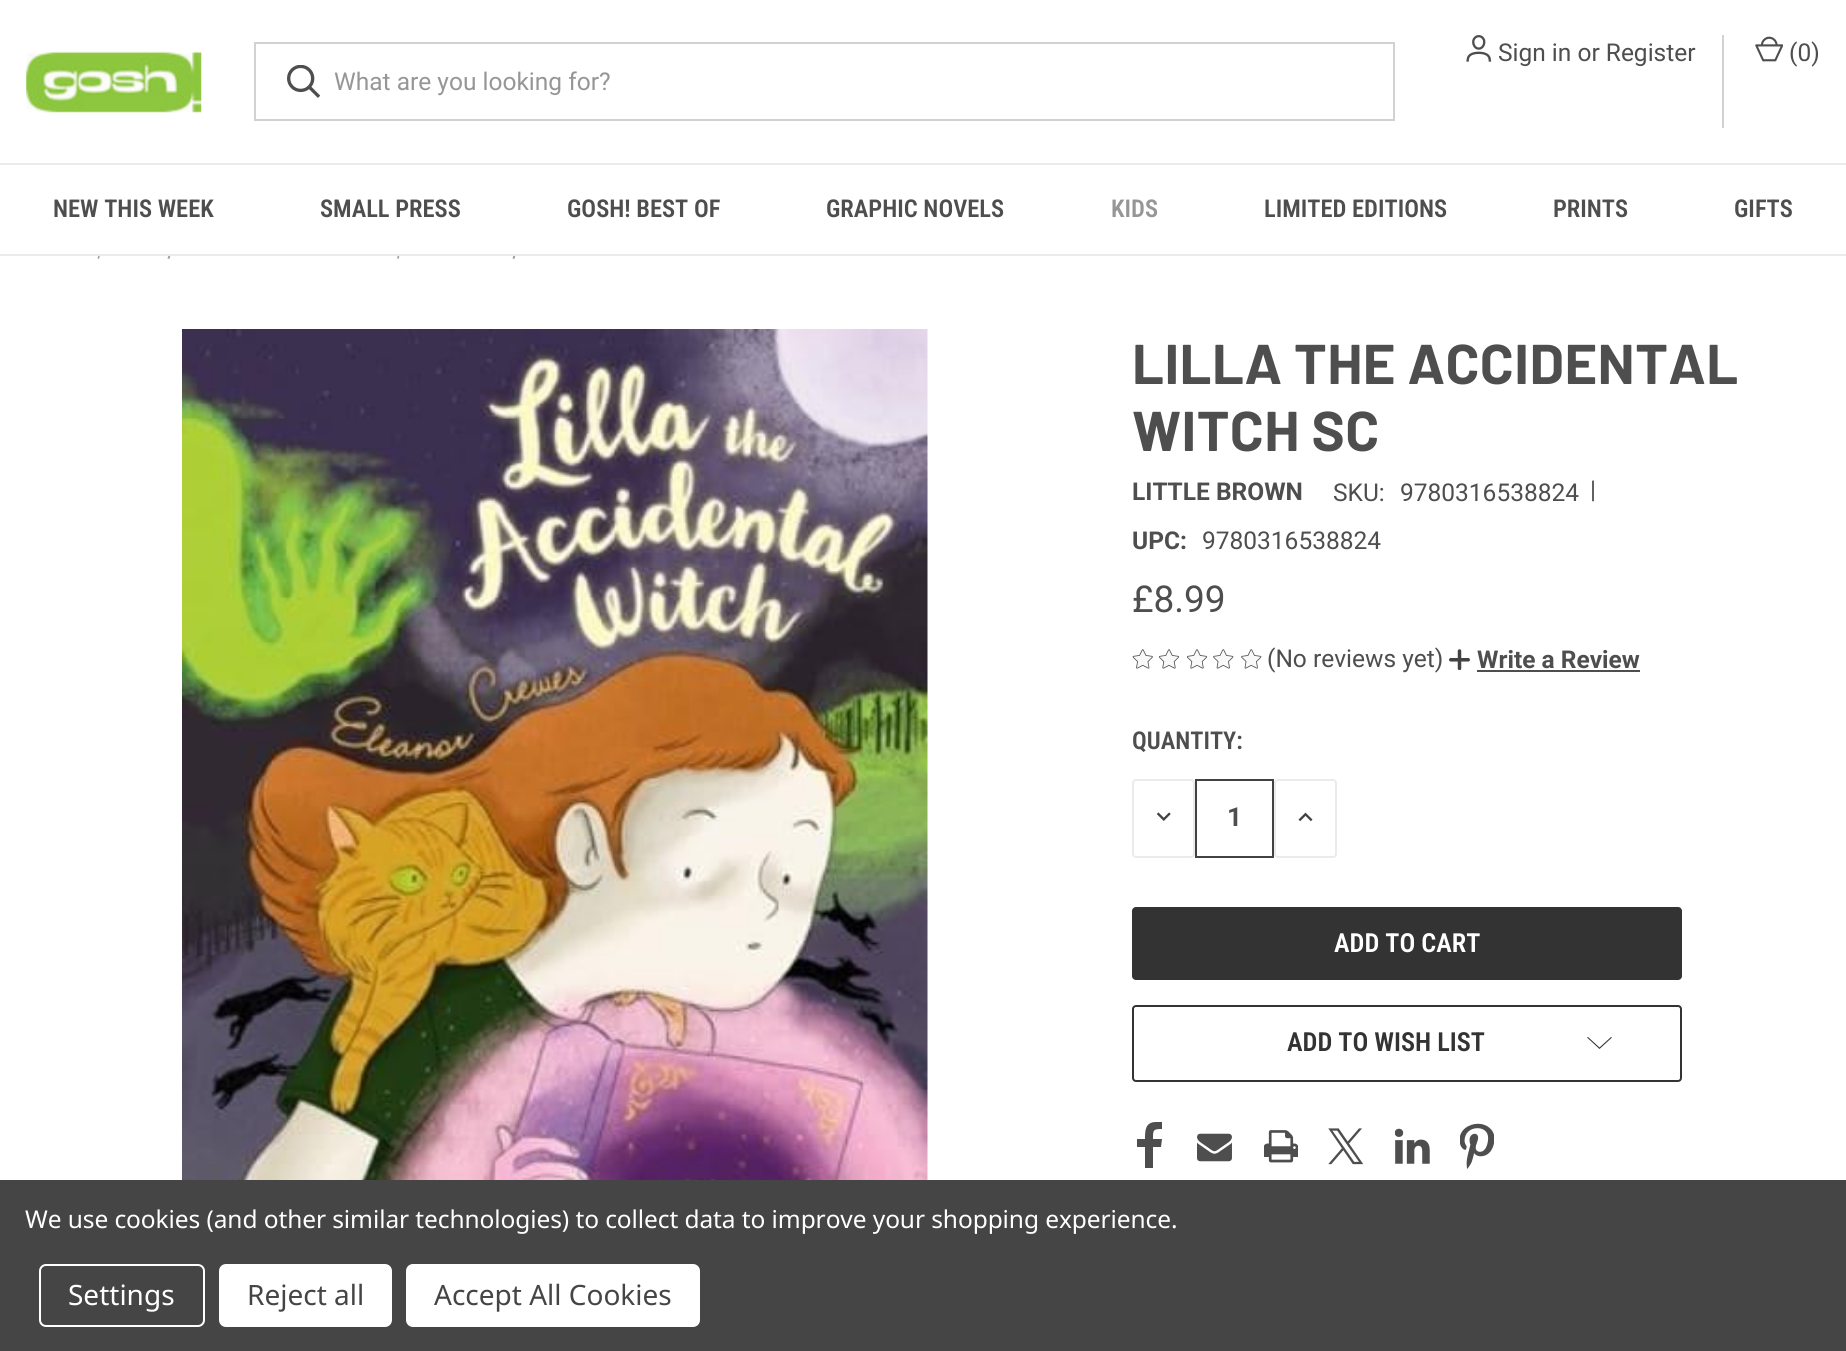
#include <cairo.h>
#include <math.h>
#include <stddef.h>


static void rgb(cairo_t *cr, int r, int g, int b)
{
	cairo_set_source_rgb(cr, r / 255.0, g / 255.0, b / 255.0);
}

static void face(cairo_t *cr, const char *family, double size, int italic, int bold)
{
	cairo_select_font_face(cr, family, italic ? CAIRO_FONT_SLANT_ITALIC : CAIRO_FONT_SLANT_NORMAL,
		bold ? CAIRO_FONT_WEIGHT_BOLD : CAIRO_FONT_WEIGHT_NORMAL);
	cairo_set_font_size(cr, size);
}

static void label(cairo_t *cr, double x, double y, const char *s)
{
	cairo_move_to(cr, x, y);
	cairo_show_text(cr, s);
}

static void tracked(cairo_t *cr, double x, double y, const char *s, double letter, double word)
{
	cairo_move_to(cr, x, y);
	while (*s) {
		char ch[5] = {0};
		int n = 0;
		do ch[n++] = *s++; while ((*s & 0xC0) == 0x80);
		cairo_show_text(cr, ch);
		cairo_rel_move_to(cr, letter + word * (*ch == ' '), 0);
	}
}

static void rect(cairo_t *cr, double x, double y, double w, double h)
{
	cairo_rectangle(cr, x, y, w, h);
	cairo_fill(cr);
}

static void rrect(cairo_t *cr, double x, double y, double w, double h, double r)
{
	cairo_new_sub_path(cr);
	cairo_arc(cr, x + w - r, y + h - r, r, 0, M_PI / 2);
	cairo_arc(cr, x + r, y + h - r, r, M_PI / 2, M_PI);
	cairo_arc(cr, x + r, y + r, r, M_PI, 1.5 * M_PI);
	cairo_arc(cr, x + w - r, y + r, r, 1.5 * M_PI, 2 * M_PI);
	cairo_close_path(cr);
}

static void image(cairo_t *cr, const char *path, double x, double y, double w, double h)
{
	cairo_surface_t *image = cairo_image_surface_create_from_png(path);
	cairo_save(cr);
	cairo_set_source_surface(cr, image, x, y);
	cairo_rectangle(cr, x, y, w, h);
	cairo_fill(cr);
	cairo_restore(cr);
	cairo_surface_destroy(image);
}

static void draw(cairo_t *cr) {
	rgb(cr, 255, 255, 255);
	cairo_paint(cr);
	image(cr, "image0.png", 26, 51, 176, 62);
	cairo_rectangle(cr, 255, 43, 1139, 77);
	rgb(cr, 210, 210, 210);
	cairo_stroke(cr);
	image(cr, "image1.png", 287, 65, 33, 33);
	face(cr, "Roboto", 24.5, 0, 0);
	rgb(cr, 150, 150, 150);
	label(cr, 334, 90, "What are you looking for?");
	image(cr, "image2.png", 1466, 35, 26, 27);
	rgb(cr, 78, 78, 78);
	label(cr, 1498, 61, "Sign in or Register");
	rgb(cr, 210, 210, 210);
	rect(cr, 1722, 35, 2, 93);
	image(cr, "image3.png", 1755, 36, 28, 26);
	rgb(cr, 78, 78, 78);
	label(cr, 1789, 61, "(0)");
	rgb(cr, 163, 163, 163);
	cairo_new_path(cr);
	cairo_move_to(cr, 102, 241);
	cairo_line_to(cr, 104, 241.5);
	cairo_line_to(cr, 99, 259);
	cairo_line_to(cr, 97.5, 258.5);
	cairo_close_path(cr);
	cairo_fill(cr);
	cairo_new_path(cr);
	cairo_move_to(cr, 172.5, 241);
	cairo_line_to(cr, 174, 241.5);
	cairo_line_to(cr, 169.5, 259);
	cairo_line_to(cr, 167.5, 258.5);
	cairo_close_path(cr);
	cairo_fill(cr);
	cairo_new_path(cr);
	cairo_move_to(cr, 401.5, 241);
	cairo_line_to(cr, 403.5, 241.5);
	cairo_line_to(cr, 398.5, 259);
	cairo_line_to(cr, 397, 258.5);
	cairo_close_path(cr);
	cairo_fill(cr);
	cairo_new_path(cr);
	cairo_move_to(cr, 517.5, 241);
	cairo_line_to(cr, 519, 241.5);
	cairo_line_to(cr, 514.5, 259);
	cairo_line_to(cr, 512.5, 258.5);
	cairo_close_path(cr);
	cairo_fill(cr);
	rgb(cr, 255, 255, 255);
	rect(cr, 98, 241, 421, 13);
	rgb(cr, 235, 235, 235);
	rect(cr, 0, 163, 1846, 2);
	rect(cr, 0, 254, 1846, 2);
	face(cr, "Roboto Condensed SemiBold", 24.5, 0, 0);
	rgb(cr, 78, 78, 78);
	label(cr, 53, 217, "NEW THIS WEEK");
	label(cr, 320, 217, "SMALL PRESS");
	label(cr, 567, 217, "GOSH! BEST OF");
	label(cr, 826, 217, "GRAPHIC NOVELS");
	rgb(cr, 150, 150, 150);
	label(cr, 1111, 217, "KIDS");
	rgb(cr, 78, 78, 78);
	label(cr, 1264, 217, "LIMITED EDITIONS");
	label(cr, 1553, 217, "PRINTS");
	label(cr, 1734, 217, "GIFTS");
	image(cr, "image4.png", 182, 329, 746, 851);
	face(cr, "Barlow", 56, 0, 1);
	tracked(cr, 1132, 384, "LILLA THE ACCIDENTAL", 0.4, 0);
	tracked(cr, 1132, 451, "WITCH SC", 0.4, 0);
	face(cr, "Roboto", 24.5, 0, 1);
	label(cr, 1132, 500, "LITTLE BROWN");
	face(cr, "Roboto", 24.5, 0, 0);
	label(cr, 1333, 501, "SKU:");
	label(cr, 1400, 501, "9780316538824");
	label(cr, 1590, 498, "|");
	face(cr, "Roboto", 24.5, 0, 1);
	label(cr, 1132, 549, "UPC:");
	face(cr, "Roboto", 24.5, 0, 0);
	label(cr, 1202, 549, "9780316538824");
	face(cr, "Roboto", 37, 0, 0);
	label(cr, 1132, 612, "£8.99");
	image(cr, "image5.png", 1132, 649, 21, 20);
	image(cr, "image6.png", 1159, 649, 21, 20);
	image(cr, "image6.png", 1187, 649, 21, 20);
	image(cr, "image7.png", 1213, 649, 21, 20);
	image(cr, "image7.png", 1241, 649, 21, 20);
	face(cr, "Roboto", 24.5, 0, 0);
	label(cr, 1267, 667, "(No reviews yet)");
	image(cr, "image8.png", 1449, 649, 21, 21);
	face(cr, "Roboto", 24.5, 0, 1);
	label(cr, 1477, 668, "Write a Review");
	rect(cr, 1477, 670, 163, 2);
	face(cr, "Roboto Condensed SemiBold", 24.5, 0, 0);
	label(cr, 1132, 749, "QUANTITY:");
	rrect(cr, 1133, 780, 61, 77, 3);
	rgb(cr, 235, 235, 235);
	cairo_stroke(cr);
	image(cr, "image9.png", 1156, 812, 15, 9);
	cairo_rectangle(cr, 1196, 780, 77, 77);
	rgb(cr, 66, 66, 66);
	cairo_stroke(cr);
	face(cr, "Roboto", 26.25, 0, 1);
	rgb(cr, 78, 78, 78);
	label(cr, 1227, 826, "1");
	rrect(cr, 1275, 780, 61, 77, 3);
	rgb(cr, 235, 235, 235);
	cairo_stroke(cr);
	image(cr, "image10.png", 1298, 812, 15, 10);
	rgb(cr, 51, 51, 51);
	rrect(cr, 1132, 907, 550, 73, 4);
	cairo_fill(cr);
	face(cr, "Roboto Condensed SemiBold", 26.25, 0, 0);
	rgb(cr, 255, 255, 255);
	label(cr, 1334, 952, "ADD TO CART");
	rrect(cr, 1133, 1006, 548, 75, 3);
	rgb(cr, 51, 51, 51);
	cairo_stroke(cr);
	label(cr, 1287, 1051, "ADD TO WISH LIST");
	cairo_set_fill_rule(cr, CAIRO_FILL_RULE_EVEN_ODD);
	cairo_new_path(cr);
	cairo_move_to(cr, 1599.5, 1047.5);
	cairo_line_to(cr, 1611, 1037);
	cairo_line_to(cr, 1612, 1037.5);
	cairo_line_to(cr, 1599.5, 1049);
	cairo_line_to(cr, 1587, 1037.5);
	cairo_line_to(cr, 1588, 1037);
	cairo_close_path(cr);
	cairo_fill(cr);
	rgb(cr, 78, 78, 78);
	cairo_new_path(cr);
	cairo_move_to(cr, 1156, 1122);
	cairo_curve_to(cr, 1145, 1122, 1145, 1131, 1145, 1139);
	cairo_line_to(cr, 1137, 1139);
	cairo_line_to(cr, 1137, 1147);
	cairo_line_to(cr, 1145, 1147);
	cairo_line_to(cr, 1145, 1168);
	cairo_line_to(cr, 1153, 1168);
	cairo_line_to(cr, 1153, 1147);
	cairo_line_to(cr, 1161, 1147);
	cairo_line_to(cr, 1162, 1139);
	cairo_line_to(cr, 1153, 1139);
	cairo_curve_to(cr, 1153, 1130, 1153, 1129, 1162, 1129);
	cairo_line_to(cr, 1162, 1122);
	cairo_close_path(cr);
	cairo_fill(cr);
	image(cr, "image11.png", 1197, 1133, 35, 29);
	image(cr, "image12.png", 1264, 1130, 34, 33);
	image(cr, "image13.png", 1328, 1128, 35, 37);
	image(cr, "image14.png", 1395, 1128, 35, 36);
	image(cr, "image15.png", 1460, 1123, 34, 46);
	rgb(cr, 69, 69, 69);
	rect(cr, 0, 1180, 1846, 171);
	face(cr, "Noto Sans", 24.5, 0, 0);
	rgb(cr, 255, 255, 255);
	tracked(cr, 25, 1228, "We use cookies (and other similar technologies) to collect data to improve your shopping experience.", -0.09, 0);
	rrect(cr, 40, 1265, 164, 61, 6);
	cairo_stroke(cr);
	face(cr, "Noto Sans", 28, 0, 0);
	label(cr, 68, 1305, "Settings");
	rrect(cr, 219, 1264, 173, 63, 7);
	cairo_fill(cr);
	rgb(cr, 69, 69, 69);
	label(cr, 247, 1305, "Reject all");
	rgb(cr, 255, 255, 255);
	rrect(cr, 406, 1264, 294, 63, 7);
	cairo_fill(cr);
	rgb(cr, 69, 69, 69);
	label(cr, 434, 1305, "Accept All Cookies");
}

int main(void) {
	cairo_surface_t *surface = cairo_image_surface_create(CAIRO_FORMAT_RGB24, 1846, 1351);
	cairo_t *cr = cairo_create(surface);
	cairo_font_options_t *options = cairo_font_options_create();
	cairo_font_options_set_hint_metrics(options, CAIRO_HINT_METRICS_OFF);
	cairo_font_options_set_hint_style(options, CAIRO_HINT_STYLE_NONE);
	cairo_set_font_options(cr, options);
	cairo_set_miter_limit(cr, 4);
	draw(cr);
	cairo_surface_write_to_png(surface, "render.png");
	cairo_font_options_destroy(options);
	cairo_destroy(cr);
	cairo_surface_destroy(surface);
	return 0;
}
